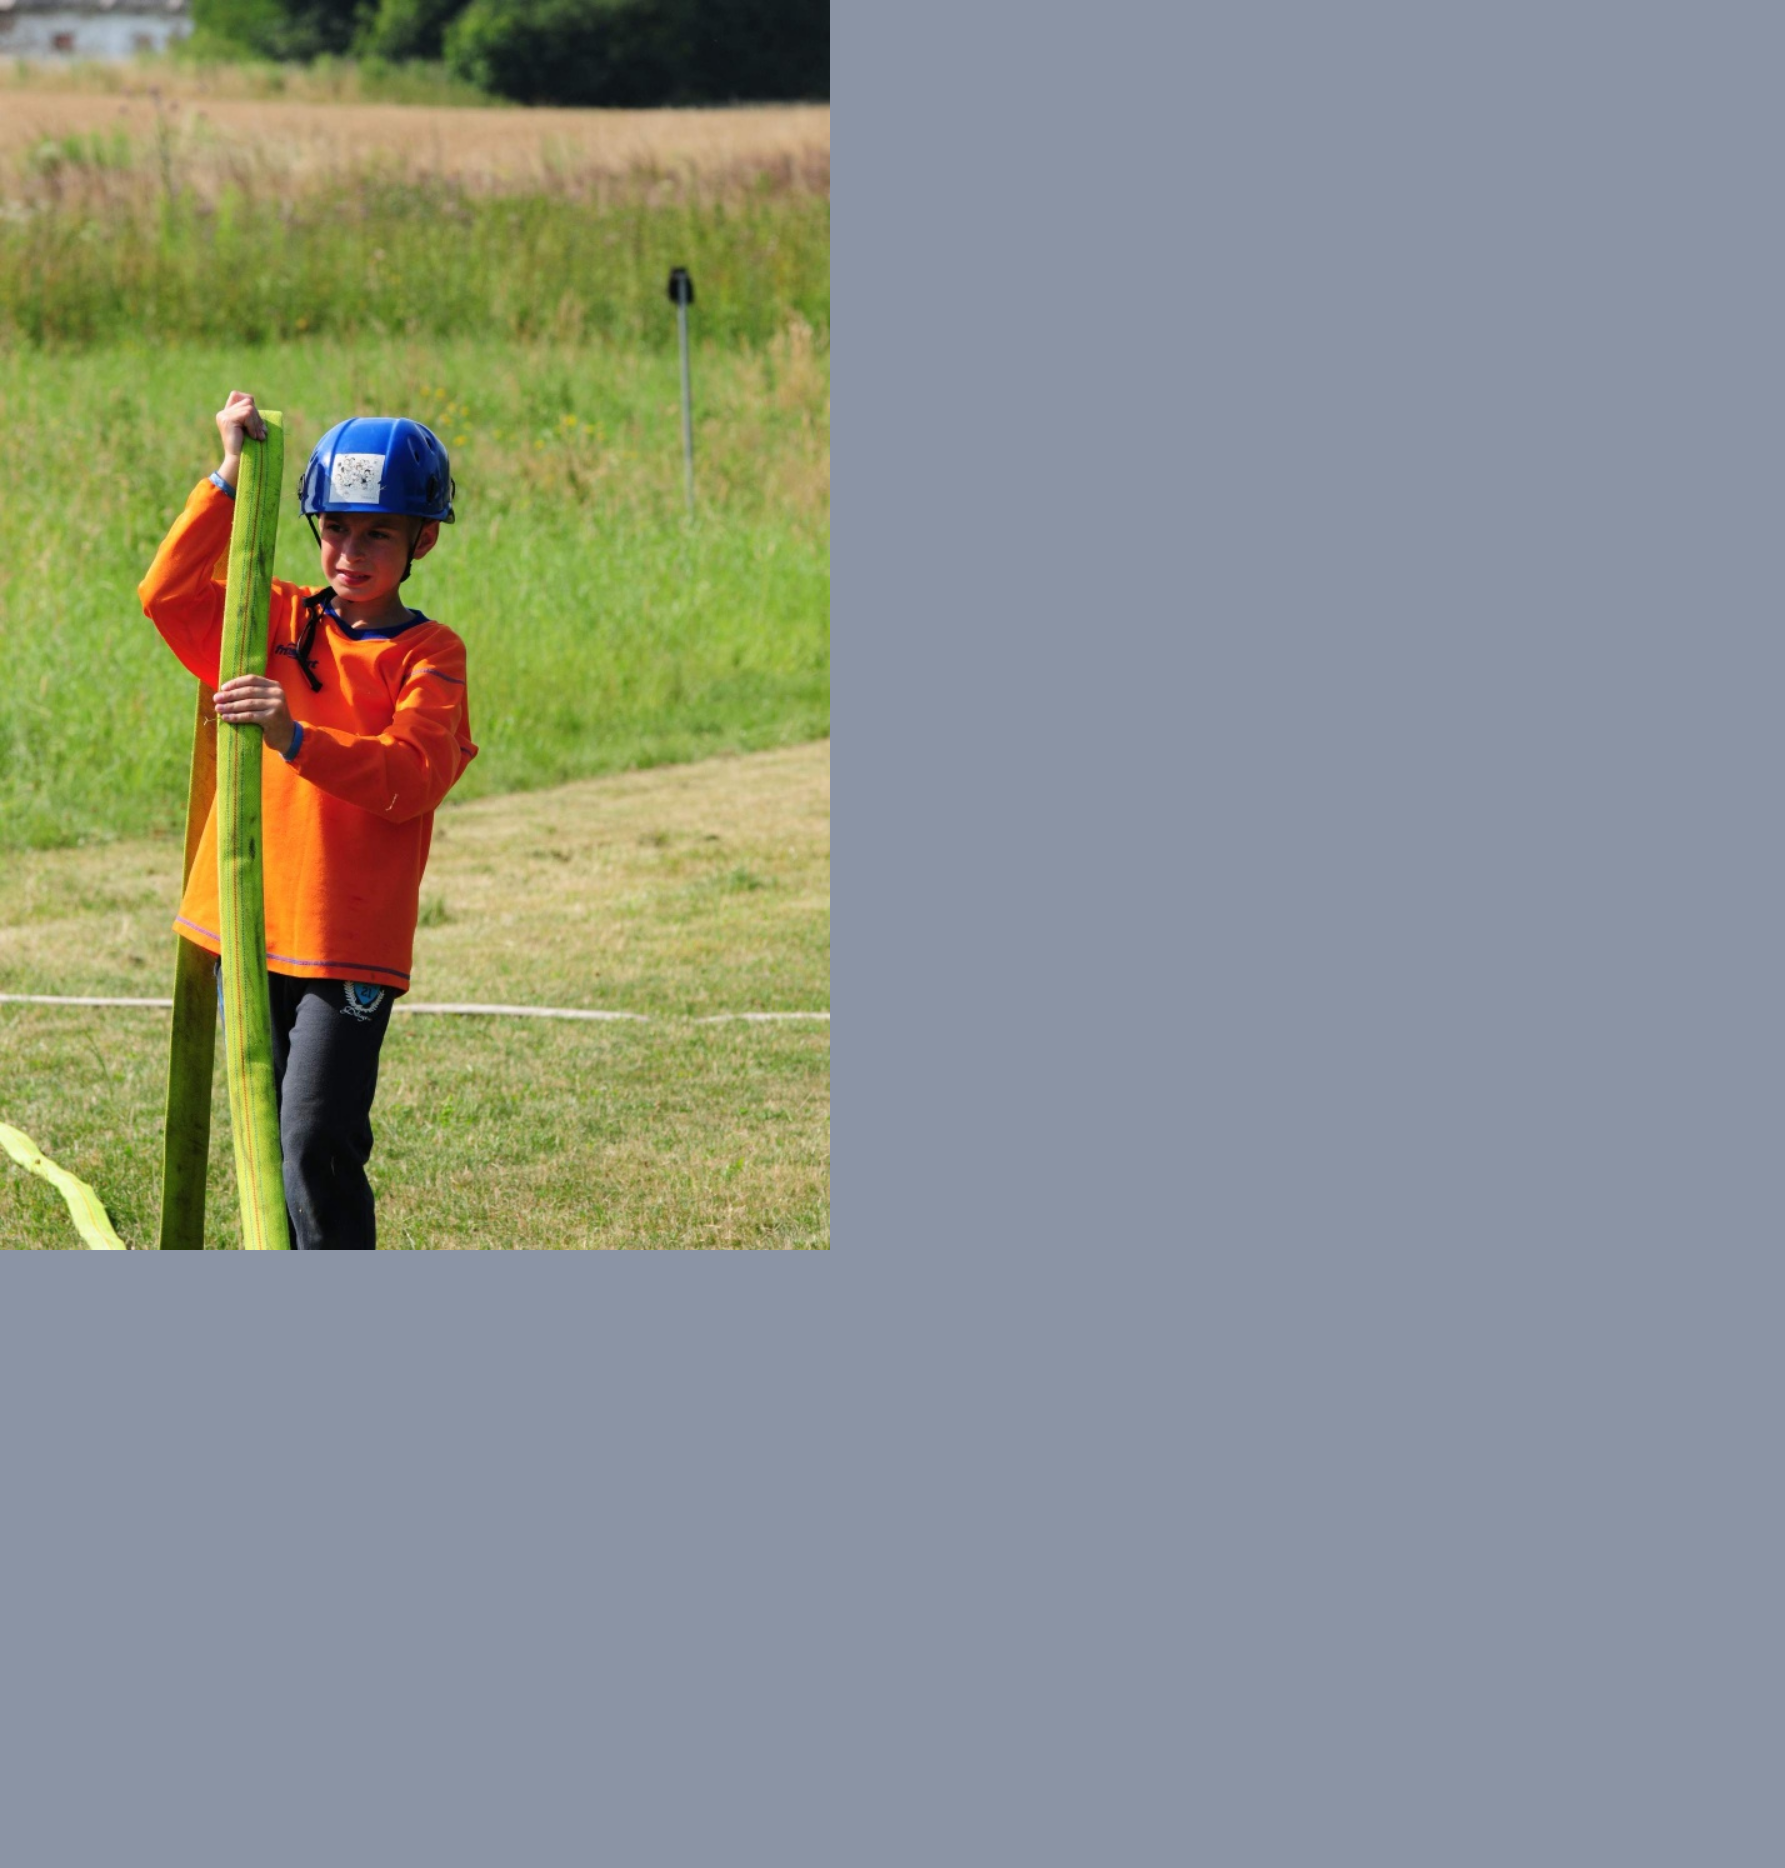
#include <cairo.h>
#include <math.h>
#include <stddef.h>


static void rgb(cairo_t *cr, int r, int g, int b)
{
	cairo_set_source_rgb(cr, r / 255.0, g / 255.0, b / 255.0);
}

static void image(cairo_t *cr, const char *path, double x, double y, double w, double h)
{
	cairo_surface_t *image = cairo_image_surface_create_from_png(path);
	cairo_save(cr);
	cairo_set_source_surface(cr, image, x, y);
	cairo_rectangle(cr, x, y, w, h);
	cairo_fill(cr);
	cairo_restore(cr);
	cairo_surface_destroy(image);
}

static void draw(cairo_t *cr) {
	rgb(cr, 139, 148, 165);
	cairo_paint(cr);
	image(cr, "image0.png", 0, 0, 830, 1250);
}

int main(void) {
	cairo_surface_t *surface = cairo_image_surface_create(CAIRO_FORMAT_RGB24, 1785, 1868);
	cairo_t *cr = cairo_create(surface);
	cairo_font_options_t *options = cairo_font_options_create();
	cairo_font_options_set_hint_metrics(options, CAIRO_HINT_METRICS_OFF);
	cairo_font_options_set_hint_style(options, CAIRO_HINT_STYLE_NONE);
	cairo_set_font_options(cr, options);
	cairo_set_miter_limit(cr, 4);
	draw(cr);
	cairo_surface_write_to_png(surface, "render.png");
	cairo_font_options_destroy(options);
	cairo_destroy(cr);
	cairo_surface_destroy(surface);
	return 0;
}
